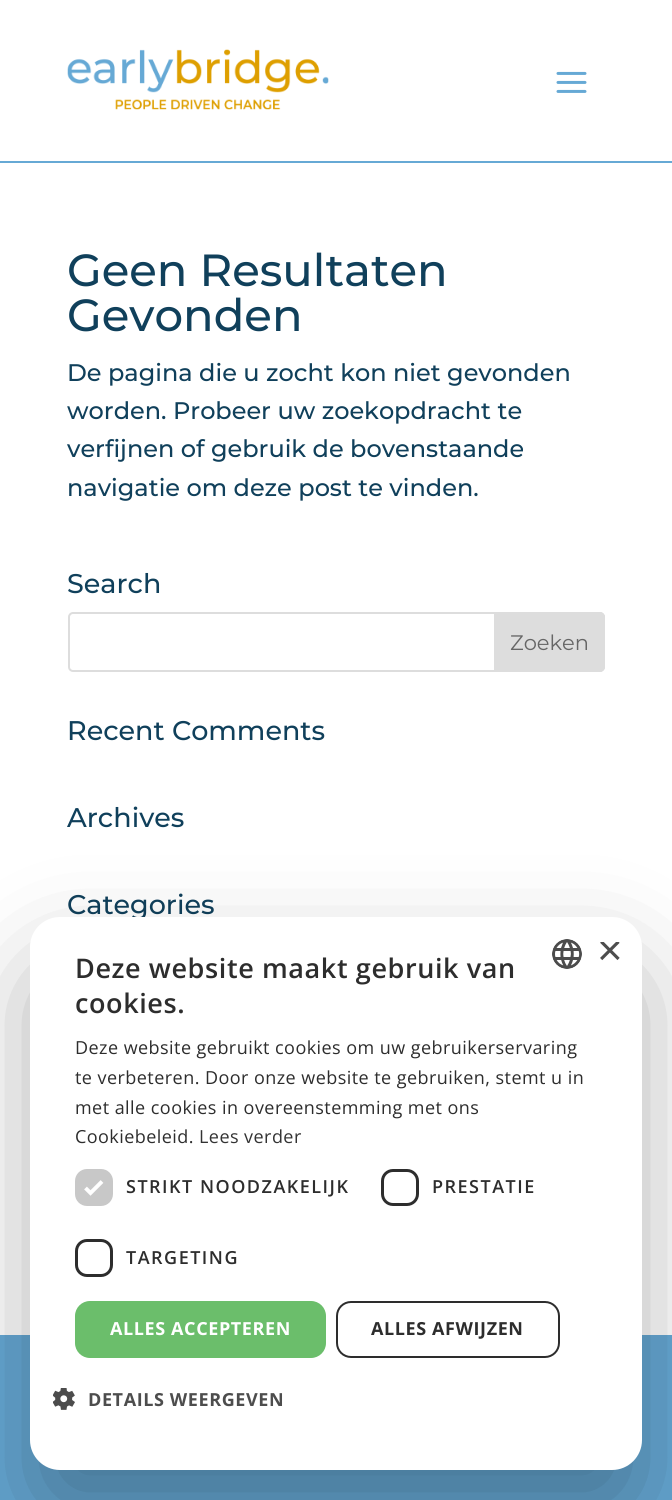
#include <cairo.h>
#include <math.h>
#include <stddef.h>


static void rgb(cairo_t *cr, int r, int g, int b)
{
	cairo_set_source_rgb(cr, r / 255.0, g / 255.0, b / 255.0);
}

static void face(cairo_t *cr, const char *family, double size, int italic, int bold)
{
	cairo_select_font_face(cr, family, italic ? CAIRO_FONT_SLANT_ITALIC : CAIRO_FONT_SLANT_NORMAL,
		bold ? CAIRO_FONT_WEIGHT_BOLD : CAIRO_FONT_WEIGHT_NORMAL);
	cairo_set_font_size(cr, size);
}

static void label(cairo_t *cr, double x, double y, const char *s)
{
	cairo_move_to(cr, x, y);
	cairo_show_text(cr, s);
}

static void tracked(cairo_t *cr, double x, double y, const char *s, double letter, double word)
{
	cairo_move_to(cr, x, y);
	while (*s) {
		char ch[5] = {0};
		int n = 0;
		do ch[n++] = *s++; while ((*s & 0xC0) == 0x80);
		cairo_show_text(cr, ch);
		cairo_rel_move_to(cr, letter + word * (*ch == ' '), 0);
	}
}

static void rect(cairo_t *cr, double x, double y, double w, double h)
{
	cairo_rectangle(cr, x, y, w, h);
	cairo_fill(cr);
}

static void rrect(cairo_t *cr, double x, double y, double w, double h, double r)
{
	cairo_new_sub_path(cr);
	cairo_arc(cr, x + w - r, y + h - r, r, 0, M_PI / 2);
	cairo_arc(cr, x + r, y + h - r, r, M_PI / 2, M_PI);
	cairo_arc(cr, x + r, y + r, r, M_PI, 1.5 * M_PI);
	cairo_arc(cr, x + w - r, y + r, r, 1.5 * M_PI, 2 * M_PI);
	cairo_close_path(cr);
}

static void soft_shadow(cairo_t *cr, double x, double y, double w, double h, double r, double blur, double alpha)
{
	cairo_push_group_with_content(cr, CAIRO_CONTENT_ALPHA);
	cairo_set_operator(cr, CAIRO_OPERATOR_SOURCE);
	for (int i = 15; i >= -15 && fmin(w, h) + blur * i / 3 > 0; i -= 2) {
		double e = blur * i / 6;
		cairo_set_source_rgba(cr, 0, 0, 0, alpha * erfc((i - 1) / 8.5) / 2);
		rrect(cr, x - e, y - e, w + 2 * e, h + 2 * e, fmax(0, fmin(r + e + blur * .6, fmin(w, h) / 2 + e)));
		cairo_fill(cr);
	}
	cairo_pattern_t *soft = cairo_pop_group(cr);
	cairo_mask(cr, soft);
	cairo_pattern_destroy(soft);
}

static void image(cairo_t *cr, const char *path, double x, double y, double w, double h)
{
	cairo_surface_t *image = cairo_image_surface_create_from_png(path);
	cairo_save(cr);
	cairo_set_source_surface(cr, image, x, y);
	cairo_rectangle(cr, x, y, w, h);
	cairo_fill(cr);
	cairo_restore(cr);
	cairo_surface_destroy(image);
}

static void draw(cairo_t *cr) {
	rgb(cr, 255, 255, 255);
	cairo_paint(cr);
	rgb(cr, 102, 169, 213);
	rect(cr, 0, 161, 672, 2);
	image(cr, "image0.png", 67, 49, 262, 61);
	image(cr, "image1.png", 556, 71, 31, 22);
	face(cr, "Montserrat Medium", 45, 0, 0);
	rgb(cr, 16, 64, 91);
	label(cr, 67, 286, "Geen Resultaten");
	label(cr, 67, 331, "Gevonden");
	face(cr, "Montserrat Medium", 24, 0, 0);
	label(cr, 67, 381, "De pagina die u zocht kon niet gevonden");
	label(cr, 67, 419, "worden. Probeer uw zoekopdracht te");
	label(cr, 67, 457, "verfijnen of gebruik de bovenstaande");
	label(cr, 67, 496, "navigatie om deze post te vinden.");
	face(cr, "Montserrat Medium", 27, 0, 0);
	label(cr, 67, 593, "Search");
	rrect(cr, 69, 613, 535, 58, 4);
	rgb(cr, 221, 221, 221);
	cairo_stroke(cr);
	cairo_new_path(cr);
	cairo_move_to(cr, 495, 613);
	cairo_line_to(cr, 600, 613);
	cairo_curve_to(cr, 602, 613, 604, 615, 604, 617);
	cairo_line_to(cr, 604, 667);
	cairo_curve_to(cr, 604, 669, 602, 671, 600, 671);
	cairo_line_to(cr, 495, 671);
	cairo_close_path(cr);
	cairo_fill_preserve(cr);
	cairo_stroke(cr);
	face(cr, "Montserrat", 21, 0, 0);
	rgb(cr, 102, 102, 102);
	label(cr, 510, 650, "Zoeken");
	face(cr, "Montserrat Medium", 27, 0, 0);
	rgb(cr, 16, 64, 91);
	label(cr, 67, 740, "Recent Comments");
	label(cr, 67, 827, "Archives");
	label(cr, 67, 914, "Categories");
	rgb(cr, 102, 169, 213);
	rect(cr, 0, 1335, 672, 165);
	rgb(cr, 0, 0, 0);
	soft_shadow(cr, 30, 965, 612, 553, 30, 51, 0.3);
	rgb(cr, 255, 255, 255);
	rrect(cr, 30, 917, 612, 553, 30);
	cairo_fill(cr);
	image(cr, "image2.png", 552, 939, 30, 30);
	cairo_save(cr);
	cairo_rectangle(cr, 597, 942, 23, 23);
	cairo_clip(cr);
	face(cr, "Liberation Sans", 44, 0, 0);
	rgb(cr, 77, 77, 77);
	label(cr, 597, 965, "×");
	cairo_restore(cr);
	face(cr, "Open Sans SemiBold", 27, 0, 0);
	rgb(cr, 45, 45, 45);
	tracked(cr, 75, 978, "Deze website maakt gebruik van", 0.6, 0);
	tracked(cr, 75, 1013, "cookies.", 0.6, 0);
	face(cr, "Open Sans", 18, 0, 0);
	tracked(cr, 75, 1054, "Deze website gebruikt cookies om uw gebruikerservaring", 0.45, 0);
	tracked(cr, 75, 1084, "te verbeteren. Door onze website te gebruiken, stemt u in", 0.45, 0);
	tracked(cr, 75, 1114, "met alle cookies in overeenstemming met ons", 0.45, 0);
	tracked(cr, 75, 1143, "Cookiebeleid.", 0.45, 0);
	rgb(cr, 51, 51, 51);
	tracked(cr, 199, 1143, "Lees verder", 0.45, 0);
	rgb(cr, 200, 200, 200);
	rrect(cr, 75, 1169, 38, 37, 12);
	cairo_fill(cr);
	cairo_new_path(cr);
	cairo_move_to(cr, 85.5, 1188);
	cairo_line_to(cr, 90.5, 1193);
	cairo_line_to(cr, 102, 1181.5);
	rgb(cr, 255, 255, 255);
	cairo_set_line_width(cr, 3.9);
	cairo_stroke(cr);
	face(cr, "Open Sans SemiBold", 18, 0, 0);
	rgb(cr, 45, 45, 45);
	tracked(cr, 126, 1193, "STRIKT NOODZAKELIJK", 1.5, 0);
	rrect(cr, 382.5, 1170.5, 35, 34, 10.5);
	cairo_set_line_width(cr, 3);
	cairo_stroke(cr);
	tracked(cr, 432, 1193, "PRESTATIE", 1.5, 0);
	rrect(cr, 76.5, 1240.5, 35, 35, 10.5);
	cairo_stroke(cr);
	tracked(cr, 126, 1264, "TARGETING", 1.5, 0);
	rgb(cr, 107, 190, 107);
	rrect(cr, 75, 1301, 251, 57, 15);
	cairo_fill(cr);
	face(cr, "Open Sans", 18, 0, 1);
	rgb(cr, 255, 255, 255);
	tracked(cr, 110, 1335, "ALLES ACCEPTEREN", 0.6, 0);
	rrect(cr, 337, 1302, 222, 55, 14);
	rgb(cr, 45, 45, 45);
	cairo_set_line_width(cr, 2);
	cairo_stroke(cr);
	tracked(cr, 371, 1335, "ALLES AFWIJZEN", 0.6, 0);
	image(cr, "image3.png", 53, 1388, 22, 22);
	rgb(cr, 77, 77, 77);
	tracked(cr, 88, 1406, "DETAILS WEERGEVEN", 0.6, 0);
}

int main(void) {
	cairo_surface_t *surface = cairo_image_surface_create(CAIRO_FORMAT_RGB24, 672, 1500);
	cairo_t *cr = cairo_create(surface);
	cairo_font_options_t *options = cairo_font_options_create();
	cairo_font_options_set_hint_metrics(options, CAIRO_HINT_METRICS_OFF);
	cairo_font_options_set_hint_style(options, CAIRO_HINT_STYLE_NONE);
	cairo_set_font_options(cr, options);
	cairo_set_miter_limit(cr, 4);
	draw(cr);
	cairo_surface_write_to_png(surface, "render.png");
	cairo_font_options_destroy(options);
	cairo_destroy(cr);
	cairo_surface_destroy(surface);
	return 0;
}
